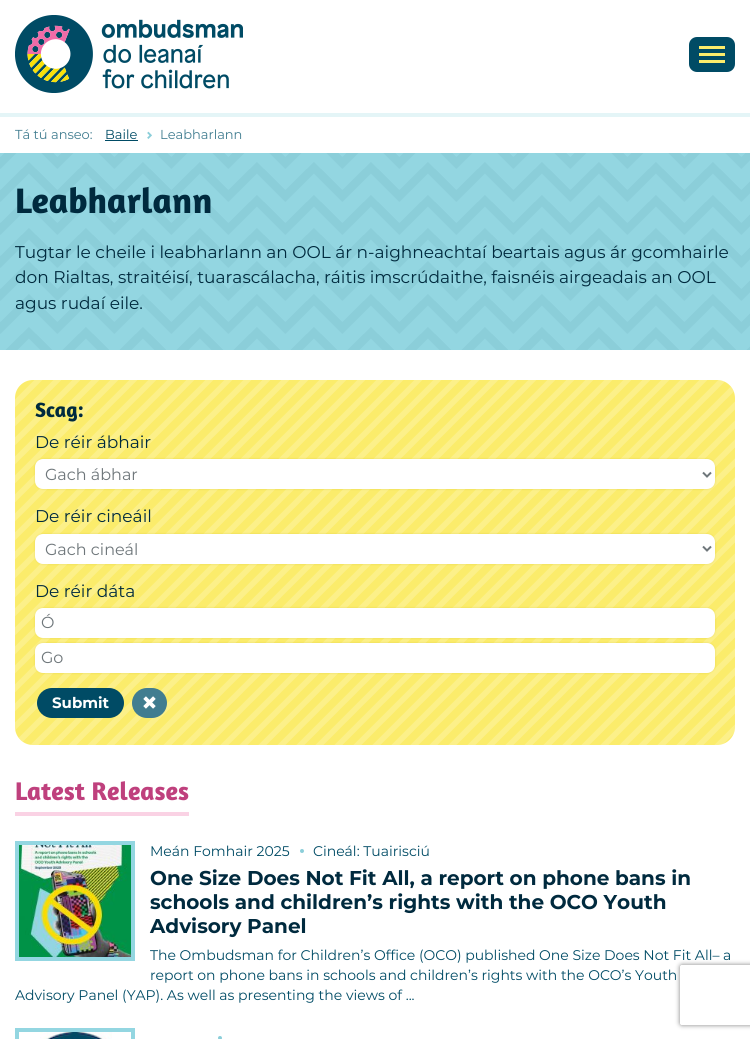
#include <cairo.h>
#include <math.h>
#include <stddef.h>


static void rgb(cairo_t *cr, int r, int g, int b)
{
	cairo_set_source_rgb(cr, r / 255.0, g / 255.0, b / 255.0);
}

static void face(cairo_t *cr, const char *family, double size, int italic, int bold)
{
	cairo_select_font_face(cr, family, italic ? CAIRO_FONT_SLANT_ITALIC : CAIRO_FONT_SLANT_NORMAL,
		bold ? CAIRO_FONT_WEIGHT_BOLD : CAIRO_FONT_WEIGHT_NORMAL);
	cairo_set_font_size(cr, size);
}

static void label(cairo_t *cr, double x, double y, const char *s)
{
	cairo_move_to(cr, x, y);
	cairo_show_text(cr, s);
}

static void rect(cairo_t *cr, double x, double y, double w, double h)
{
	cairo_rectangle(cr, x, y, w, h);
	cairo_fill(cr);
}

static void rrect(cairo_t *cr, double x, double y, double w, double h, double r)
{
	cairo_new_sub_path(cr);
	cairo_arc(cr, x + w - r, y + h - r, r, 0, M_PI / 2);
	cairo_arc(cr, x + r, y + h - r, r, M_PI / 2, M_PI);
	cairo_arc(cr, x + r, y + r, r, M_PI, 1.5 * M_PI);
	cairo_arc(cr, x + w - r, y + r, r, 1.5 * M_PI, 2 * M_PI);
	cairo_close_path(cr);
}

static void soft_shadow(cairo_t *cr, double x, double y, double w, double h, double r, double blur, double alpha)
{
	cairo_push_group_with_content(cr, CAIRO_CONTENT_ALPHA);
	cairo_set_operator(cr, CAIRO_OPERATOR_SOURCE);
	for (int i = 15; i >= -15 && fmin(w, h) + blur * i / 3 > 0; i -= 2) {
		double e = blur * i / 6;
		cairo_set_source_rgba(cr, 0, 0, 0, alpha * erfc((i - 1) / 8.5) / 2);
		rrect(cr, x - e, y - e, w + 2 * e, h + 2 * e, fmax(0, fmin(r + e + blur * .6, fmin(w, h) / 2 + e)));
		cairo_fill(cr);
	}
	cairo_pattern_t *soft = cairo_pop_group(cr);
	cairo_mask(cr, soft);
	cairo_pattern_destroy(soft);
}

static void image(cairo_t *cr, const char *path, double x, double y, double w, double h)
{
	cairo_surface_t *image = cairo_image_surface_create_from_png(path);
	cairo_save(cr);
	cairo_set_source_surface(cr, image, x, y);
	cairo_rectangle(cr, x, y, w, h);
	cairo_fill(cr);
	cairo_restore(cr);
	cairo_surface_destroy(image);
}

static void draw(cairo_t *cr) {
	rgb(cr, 255, 255, 255);
	cairo_paint(cr);
	rgb(cr, 228, 245, 247);
	rect(cr, 0, 113, 750, 4);
	image(cr, "image0.png", 15, 15, 228, 78);
	rgb(cr, 0, 75, 101);
	rrect(cr, 689, 37, 46, 35, 8);
	cairo_fill(cr);
	rgb(cr, 251, 236, 107);
	rect(cr, 699, 46, 26, 3);
	rect(cr, 699, 53, 26, 3);
	rect(cr, 699, 60, 26, 3);
	face(cr, "Montserrat", 13, 0, 0);
	rgb(cr, 65, 125, 144);
	label(cr, 15, 139, "Tá tú anseo:");
	rgb(cr, 0, 75, 101);
	label(cr, 105, 139, "Baile");
	rect(cr, 105, 140, 33, 1);
	image(cr, "image1.png", 147, 131, 5, 8);
	rgb(cr, 65, 125, 144);
	label(cr, 160, 139, "Leabharlann");
	image(cr, "image2.png", 0, 153, 750, 197);
	face(cr, "Amaranth", 36, 0, 1);
	rgb(cr, 0, 42, 62);
	label(cr, 15, 213, "Leabharlann");
	face(cr, "Montserrat", 17, 0, 0);
	label(cr, 15, 258, "Tugtar le cheile i leabharlann an OOL ár n-aighneachtaí beartais agus ár gcomhairle");
	label(cr, 15, 283, "don Rialtas, straitéisí, tuarascálacha, ráitis imscrúdaithe, faisnéis airgeadais an OOL");
	label(cr, 15, 309, "agus rudaí eile.");
	rgb(cr, 251, 236, 107);
	rrect(cr, 15, 380, 720, 365, 18);
	cairo_fill(cr);
	image(cr, "image3.png", 15, 380, 720, 365);
	face(cr, "Amaranth", 21, 0, 1);
	rgb(cr, 0, 42, 62);
	label(cr, 35, 417, "Scag:");
	face(cr, "Montserrat", 17, 0, 0);
	label(cr, 35, 448, "De réir ábhair");
	rgb(cr, 189, 166, 17);
	soft_shadow(cr, 35, 459, 680, 30, 8, 1, 0.3);
	rgb(cr, 255, 255, 255);
	rrect(cr, 35, 459, 680, 30, 8);
	cairo_fill(cr);
	cairo_new_path(cr);
	cairo_move_to(cr, 703, 472.5);
	cairo_line_to(cr, 707, 476.5);
	cairo_line_to(cr, 711, 472.5);
	rgb(cr, 110, 118, 122);
	cairo_stroke(cr);
	face(cr, "Montserrat", 16, 0, 0);
	label(cr, 45, 480, "Gach ábhar");
	face(cr, "Montserrat", 17, 0, 0);
	rgb(cr, 0, 42, 62);
	label(cr, 35, 522, "De réir cineáil");
	rgb(cr, 189, 166, 17);
	soft_shadow(cr, 35, 534, 680, 30, 8, 1, 0.3);
	rgb(cr, 255, 255, 255);
	rrect(cr, 35, 534, 680, 30, 8);
	cairo_fill(cr);
	cairo_new_path(cr);
	cairo_move_to(cr, 703, 546.5);
	cairo_line_to(cr, 707, 550.5);
	cairo_line_to(cr, 711, 546.5);
	rgb(cr, 110, 118, 122);
	cairo_stroke(cr);
	face(cr, "Montserrat", 16, 0, 0);
	label(cr, 45, 555, "Gach cineál");
	face(cr, "Montserrat", 17, 0, 0);
	rgb(cr, 0, 42, 62);
	label(cr, 35, 597, "De réir dáta");
	rgb(cr, 189, 166, 17);
	soft_shadow(cr, 35, 608, 680, 30, 8, 1, 0.3);
	rgb(cr, 255, 255, 255);
	rrect(cr, 35, 608, 680, 30, 8);
	cairo_fill(cr);
	face(cr, "Montserrat", 16, 0, 0);
	rgb(cr, 110, 118, 122);
	label(cr, 41, 628, "Ó");
	rgb(cr, 189, 166, 17);
	soft_shadow(cr, 35, 643, 680, 30, 8, 1, 0.3);
	rgb(cr, 255, 255, 255);
	rrect(cr, 35, 643, 680, 30, 8);
	cairo_fill(cr);
	rgb(cr, 110, 118, 122);
	label(cr, 41, 663, "Go");
	rgb(cr, 0, 75, 101);
	rrect(cr, 37, 688, 87, 30, 15);
	cairo_fill(cr);
	face(cr, "Montserrat", 15, 0, 1);
	rgb(cr, 255, 255, 255);
	label(cr, 52, 708, "Submit");
	rgb(cr, 65, 125, 144);
	rrect(cr, 132, 688, 35, 30, 15);
	cairo_fill(cr);
	image(cr, "image4.png", 143, 696, 13, 13);
	rgb(cr, 250, 210, 228);
	rect(cr, 15, 812, 174, 4);
	face(cr, "Amaranth", 26, 0, 1);
	rgb(cr, 191, 64, 125);
	label(cr, 15, 800, "Latest Releases");
	cairo_rectangle(cr, 17, 843, 116, 116);
	rgb(cr, 147, 214, 225);
	cairo_set_line_width(cr, 4);
	cairo_stroke(cr);
	image(cr, "image5.png", 19, 845, 112, 112);
	face(cr, "Montserrat", 14, 0, 0);
	rgb(cr, 0, 75, 101);
	label(cr, 150, 856, "Meán Fomhair 2025");
	rgb(cr, 139, 206, 217);
	cairo_new_path(cr);
	cairo_arc(cr, 302, 851, 2, 0, 2 * M_PI);
	cairo_fill(cr);
	rgb(cr, 0, 75, 101);
	label(cr, 313, 856, "Cineál: Tuairisciú");
	face(cr, "Montserrat", 20, 0, 1);
	rgb(cr, 0, 42, 62);
	label(cr, 150, 885, "One Size Does Not Fit All, a report on phone bans in");
	label(cr, 150, 909, "schools and children’s rights with the OCO Youth");
	label(cr, 150, 933, "Advisory Panel");
	face(cr, "Montserrat", 14, 0, 0);
	rgb(cr, 0, 75, 101);
	label(cr, 150, 960, "The Ombudsman for Children’s Office (OCO) published One Size Does Not Fit All– a");
	label(cr, 150, 980, "report on phone bans in schools and children’s rights with the OCO’s Youth");
	label(cr, 15, 1000, "Advisory Panel (YAP). As well as presenting the views of ...");
	cairo_rectangle(cr, 17, 1030, 116, 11);
	rgb(cr, 147, 214, 225);
	cairo_stroke(cr);
	image(cr, "image6.png", 40, 1032, 72, 7);
	rgb(cr, 139, 206, 217);
	cairo_arc(cr, 220, 1038, 2, 0, 2 * M_PI);
	cairo_fill(cr);
	cairo_save(cr);
	cairo_set_fill_rule(cr, CAIRO_FILL_RULE_EVEN_ODD);
	cairo_new_path(cr);
	cairo_move_to(cr, 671, 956);
	cairo_line_to(cr, 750, 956);
	cairo_line_to(cr, 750, 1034);
	cairo_line_to(cr, 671, 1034);
	cairo_close_path(cr);
	cairo_move_to(cr, 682, 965);
	cairo_line_to(cr, 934, 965);
	cairo_curve_to(cr, 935, 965, 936, 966, 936, 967);
	cairo_line_to(cr, 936, 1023);
	cairo_curve_to(cr, 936, 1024, 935, 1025, 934, 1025);
	cairo_line_to(cr, 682, 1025);
	cairo_curve_to(cr, 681, 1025, 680, 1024, 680, 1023);
	cairo_line_to(cr, 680, 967);
	cairo_curve_to(cr, 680, 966, 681, 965, 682, 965);
	cairo_close_path(cr);
	cairo_clip(cr);
	rgb(cr, 128, 128, 128);
	soft_shadow(cr, 680, 965, 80, 60, 2, 2.5, 1);
	cairo_restore(cr);
}

int main(void) {
	cairo_surface_t *surface = cairo_image_surface_create(CAIRO_FORMAT_RGB24, 750, 1039);
	cairo_t *cr = cairo_create(surface);
	cairo_font_options_t *options = cairo_font_options_create();
	cairo_font_options_set_hint_metrics(options, CAIRO_HINT_METRICS_OFF);
	cairo_font_options_set_hint_style(options, CAIRO_HINT_STYLE_NONE);
	cairo_set_font_options(cr, options);
	cairo_set_miter_limit(cr, 4);
	draw(cr);
	cairo_surface_write_to_png(surface, "render.png");
	cairo_font_options_destroy(options);
	cairo_destroy(cr);
	cairo_surface_destroy(surface);
	return 0;
}
